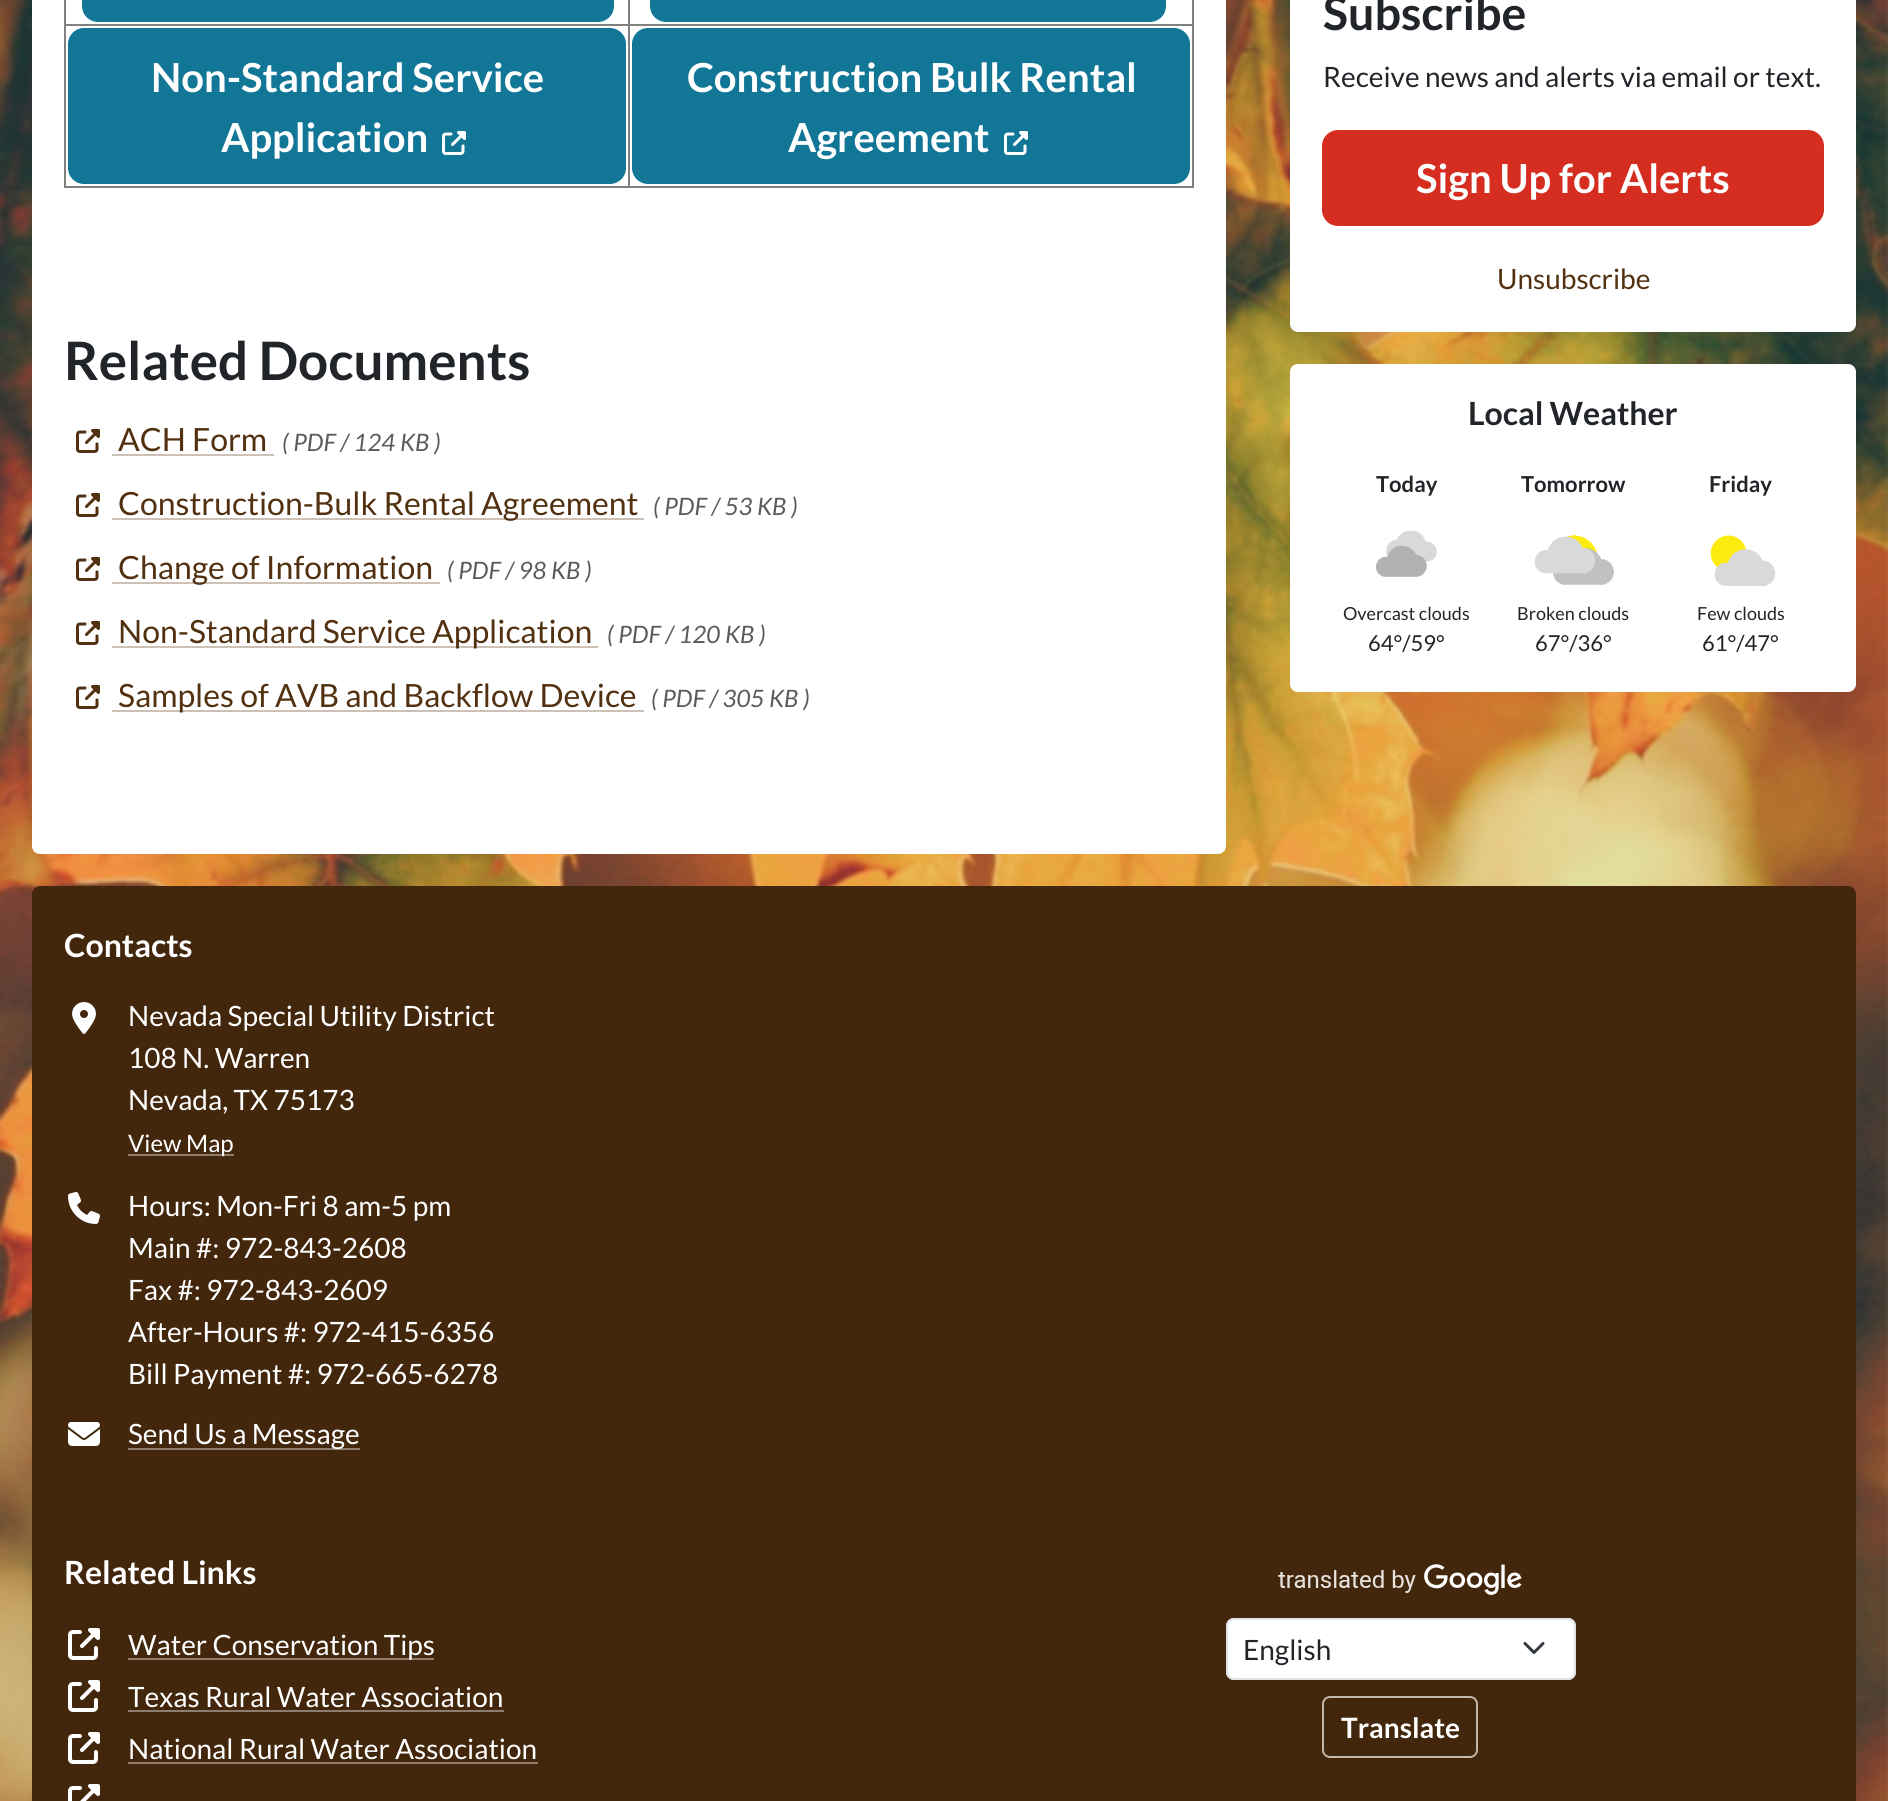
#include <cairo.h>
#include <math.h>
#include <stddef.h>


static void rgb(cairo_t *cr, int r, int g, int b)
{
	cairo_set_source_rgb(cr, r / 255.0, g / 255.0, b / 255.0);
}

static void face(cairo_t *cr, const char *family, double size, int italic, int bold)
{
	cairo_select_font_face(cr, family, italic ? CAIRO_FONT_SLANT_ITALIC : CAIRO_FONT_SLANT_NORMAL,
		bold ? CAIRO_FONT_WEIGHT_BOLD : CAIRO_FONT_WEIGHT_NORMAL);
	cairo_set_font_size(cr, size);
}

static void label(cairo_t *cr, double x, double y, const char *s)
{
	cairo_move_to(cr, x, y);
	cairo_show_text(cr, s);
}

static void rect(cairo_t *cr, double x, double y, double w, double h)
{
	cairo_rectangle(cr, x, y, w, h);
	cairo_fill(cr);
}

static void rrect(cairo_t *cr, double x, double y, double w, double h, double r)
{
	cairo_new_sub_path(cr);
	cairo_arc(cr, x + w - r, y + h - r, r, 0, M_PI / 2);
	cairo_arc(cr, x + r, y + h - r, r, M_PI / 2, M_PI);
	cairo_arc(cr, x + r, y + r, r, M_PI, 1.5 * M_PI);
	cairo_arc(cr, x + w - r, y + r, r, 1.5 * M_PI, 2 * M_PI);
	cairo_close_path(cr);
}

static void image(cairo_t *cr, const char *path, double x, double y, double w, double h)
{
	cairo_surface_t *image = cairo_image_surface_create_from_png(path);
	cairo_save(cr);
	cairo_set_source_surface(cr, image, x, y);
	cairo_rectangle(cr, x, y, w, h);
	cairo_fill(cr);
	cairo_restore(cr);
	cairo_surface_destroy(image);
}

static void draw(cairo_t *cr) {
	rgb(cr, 255, 255, 255);
	cairo_paint(cr);
	image(cr, "image0.png", 0, 0, 1888, 1801);
	rgb(cr, 255, 255, 255);
	rrect(cr, 32, -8, 1194, 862, 8);
	cairo_fill(cr);
	rgb(cr, 128, 128, 128);
	rect(cr, 1192, 0, 2, 188);
	rect(cr, 628, 186, 566, 2);
	rect(cr, 628, 24, 2, 164);
	rect(cr, 628, 24, 566, 2);
	rect(cr, 628, 0, 2, 26);
	rect(cr, 64, 186, 566, 2);
	rect(cr, 64, 24, 2, 164);
	rect(cr, 64, 24, 566, 2);
	rect(cr, 64, 0, 2, 26);
	rgb(cr, 18, 118, 150);
	rrect(cr, 83, -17, 530, 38, 15);
	cairo_fill_preserve(cr);
	cairo_stroke(cr);
	rrect(cr, 651, -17, 514, 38, 15);
	cairo_fill_preserve(cr);
	cairo_stroke(cr);
	rrect(cr, 69, 29, 556, 154, 15);
	cairo_fill_preserve(cr);
	cairo_stroke(cr);
	face(cr, "Lato", 40, 0, 1);
	rgb(cr, 255, 255, 255);
	label(cr, 151, 92, "Non-Standard Service");
	label(cr, 221, 152, "Application");
	image(cr, "image1.png", 442, 131, 24, 24);
	rgb(cr, 18, 118, 150);
	rrect(cr, 633, 29, 556, 154, 15);
	cairo_fill_preserve(cr);
	cairo_stroke(cr);
	rgb(cr, 255, 255, 255);
	label(cr, 687, 92, "Construction Bulk Rental");
	label(cr, 788, 152, "Agreement");
	image(cr, "image1.png", 1004, 131, 24, 24);
	face(cr, "Lato", 53, 0, 1);
	rgb(cr, 33, 37, 41);
	label(cr, 64, 380, "Related Documents");
	image(cr, "image2.png", 76, 429, 24, 24);
	face(cr, "Lato", 32, 0, 0);
	rgb(cr, 82, 49, 16);
	label(cr, 118, 451, "ACH Form");
	rgb(cr, 203, 193, 183);
	rect(cr, 112, 454, 162, 2);
	face(cr, "Lato", 24, 1, 0);
	rgb(cr, 89, 92, 95);
	label(cr, 282, 451, "( PDF / 124 KB )");
	image(cr, "image2.png", 76, 493, 24, 24);
	rgb(cr, 203, 193, 183);
	rect(cr, 112, 518, 532, 2);
	face(cr, "Lato", 32, 0, 0);
	rgb(cr, 82, 49, 16);
	label(cr, 118, 515, "Construction-Bulk Rental Agreement");
	face(cr, "Lato", 24, 1, 0);
	rgb(cr, 89, 92, 95);
	label(cr, 653, 515, "( PDF / 53 KB )");
	image(cr, "image2.png", 76, 557, 24, 24);
	rgb(cr, 203, 193, 183);
	rect(cr, 112, 582, 328, 2);
	face(cr, "Lato", 32, 0, 0);
	rgb(cr, 82, 49, 16);
	label(cr, 118, 579, "Change of Information");
	face(cr, "Lato", 24, 1, 0);
	rgb(cr, 89, 92, 95);
	label(cr, 447, 579, "( PDF / 98 KB )");
	image(cr, "image2.png", 76, 621, 24, 24);
	rgb(cr, 203, 193, 183);
	rect(cr, 112, 646, 486, 2);
	face(cr, "Lato", 32, 0, 0);
	rgb(cr, 82, 49, 16);
	label(cr, 118, 643, "Non-Standard Service Application");
	face(cr, "Lato", 24, 1, 0);
	rgb(cr, 89, 92, 95);
	label(cr, 607, 643, "( PDF / 120 KB )");
	image(cr, "image2.png", 76, 685, 24, 24);
	rgb(cr, 203, 193, 183);
	rect(cr, 112, 710, 532, 2);
	face(cr, "Lato", 32, 0, 0);
	rgb(cr, 82, 49, 16);
	label(cr, 118, 707, "Samples of AVB and Backflow Device");
	face(cr, "Lato", 24, 1, 0);
	rgb(cr, 89, 92, 95);
	label(cr, 651, 707, "( PDF / 305 KB )");
	rgb(cr, 255, 255, 255);
	rrect(cr, 1290, -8, 566, 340, 8);
	cairo_fill(cr);
	face(cr, "Lato", 46.5, 0, 1);
	rgb(cr, 33, 37, 41);
	label(cr, 1323, 30, "Subscribe");
	face(cr, "Lato", 28, 0, 0);
	label(cr, 1323, 87, "Receive news and alerts via email or text.");
	rgb(cr, 213, 46, 32);
	rrect(cr, 1323, 131, 500, 94, 15);
	cairo_fill_preserve(cr);
	cairo_stroke(cr);
	face(cr, "Lato", 40, 0, 1);
	rgb(cr, 255, 255, 255);
	label(cr, 1416, 193, "Sign Up for Alerts");
	face(cr, "Lato", 28, 0, 0);
	rgb(cr, 82, 49, 16);
	label(cr, 1497, 289, "Unsubscribe");
	rgb(cr, 255, 255, 255);
	rrect(cr, 1290, 364, 566, 328, 8);
	cairo_fill(cr);
	face(cr, "Lato", 32, 0, 1);
	rgb(cr, 33, 37, 41);
	label(cr, 1468, 425, "Local Weather");
	face(cr, "Lato", 22, 0, 1);
	label(cr, 1376, 492, "Today");
	label(cr, 1521, 492, "Tomorrow");
	label(cr, 1709, 492, "Friday");
	image(cr, "image3.png", 1376, 530, 61, 47);
	face(cr, "Lato", 18, 0, 0);
	label(cr, 1343, 620, "Overcast clouds");
	face(cr, "Lato", 22, 0, 0);
	label(cr, 1368, 651, "64°/59°");
	image(cr, "image4.png", 1534, 535, 80, 50);
	face(cr, "Lato", 18, 0, 0);
	label(cr, 1517, 620, "Broken clouds");
	face(cr, "Lato", 22, 0, 0);
	label(cr, 1535, 651, "67°/36°");
	image(cr, "image5.png", 1710, 535, 66, 51);
	face(cr, "Lato", 18, 0, 0);
	label(cr, 1697, 620, "Few clouds");
	face(cr, "Lato", 22, 0, 0);
	label(cr, 1702, 651, "61°/47°");
	rgb(cr, 66, 39, 13);
	rrect(cr, 32, 886, 1824, 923, 8);
	cairo_fill(cr);
	face(cr, "Lato", 32, 0, 1);
	rgb(cr, 255, 255, 255);
	label(cr, 64, 957, "Contacts");
	image(cr, "image6.png", 72, 1002, 24, 32);
	face(cr, "Lato", 28, 0, 0);
	label(cr, 128, 1026, "Nevada Special Utility District");
	label(cr, 128, 1068, "108 N. Warren");
	label(cr, 128, 1110, "Nevada, TX 75173");
	rgb(cr, 142, 125, 110);
	rect(cr, 128, 1154, 106, 2);
	face(cr, "Lato", 24, 0, 0);
	rgb(cr, 255, 255, 255);
	label(cr, 128, 1152, "View Map");
	image(cr, "image7.png", 68, 1192, 32, 32);
	face(cr, "Lato", 28, 0, 0);
	label(cr, 128, 1216, "Hours: Mon-Fri 8 am-5 pm");
	label(cr, 128, 1258, "Main #: 972-843-2608");
	label(cr, 128, 1300, "Fax #: 972-843-2609");
	label(cr, 128, 1342, "After-Hours #: 972-415-6356");
	label(cr, 128, 1384, "Bill Payment #: 972-665-6278");
	image(cr, "image8.png", 68, 1422, 32, 24);
	rgb(cr, 142, 125, 110);
	rect(cr, 128, 1448, 232, 2);
	rgb(cr, 255, 255, 255);
	label(cr, 128, 1444, "Send Us a Message");
	face(cr, "Lato", 32, 0, 1);
	label(cr, 64, 1584, "Related Links");
	image(cr, "image9.png", 68, 1628, 32, 32);
	rgb(cr, 142, 125, 110);
	rect(cr, 128, 1658, 306, 2);
	face(cr, "Lato", 28, 0, 0);
	rgb(cr, 255, 255, 255);
	label(cr, 128, 1655, "Water Conservation Tips");
	image(cr, "image9.png", 68, 1680, 32, 32);
	label(cr, 128, 1707, "Texas Rural Water Association");
	rgb(cr, 142, 125, 110);
	rect(cr, 128, 1710, 376, 2);
	image(cr, "image9.png", 68, 1732, 32, 32);
	rgb(cr, 255, 255, 255);
	label(cr, 128, 1759, "National Rural Water Association");
	rgb(cr, 142, 125, 110);
	rect(cr, 128, 1762, 410, 2);
	image(cr, "image10.png", 68, 1784, 32, 17);
	image(cr, "image11.png", 1278, 1564, 244, 31);
	rgb(cr, 255, 255, 255);
	rrect(cr, 1226, 1618, 350, 62, 8);
	cairo_fill(cr);
	cairo_new_path(cr);
	cairo_move_to(cr, 1525, 1643.5);
	cairo_line_to(cr, 1534, 1652.5);
	cairo_line_to(cr, 1543, 1643.5);
	rgb(cr, 52, 58, 64);
	cairo_set_line_width(cr, 3);
	cairo_set_line_cap(cr, CAIRO_LINE_CAP_ROUND);
	cairo_set_line_join(cr, CAIRO_LINE_JOIN_ROUND);
	cairo_stroke(cr);
	rrect(cr, 1227, 1619, 348, 60, 7);
	rgb(cr, 222, 226, 230);
	cairo_set_line_width(cr, 2);
	cairo_set_line_cap(cr, CAIRO_LINE_CAP_BUTT);
	cairo_set_line_join(cr, CAIRO_LINE_JOIN_MITER);
	cairo_stroke(cr);
	rgb(cr, 33, 37, 41);
	label(cr, 1243, 1660, "English");
	rrect(cr, 1323, 1697, 154, 60, 7);
	rgb(cr, 194, 183, 171);
	cairo_stroke(cr);
	face(cr, "Lato", 28, 0, 1);
	rgb(cr, 255, 255, 255);
	label(cr, 1341, 1738, "Translate");
}

int main(void) {
	cairo_surface_t *surface = cairo_image_surface_create(CAIRO_FORMAT_RGB24, 1888, 1801);
	cairo_t *cr = cairo_create(surface);
	cairo_font_options_t *options = cairo_font_options_create();
	cairo_font_options_set_hint_metrics(options, CAIRO_HINT_METRICS_OFF);
	cairo_font_options_set_hint_style(options, CAIRO_HINT_STYLE_NONE);
	cairo_set_font_options(cr, options);
	cairo_set_miter_limit(cr, 4);
	draw(cr);
	cairo_surface_write_to_png(surface, "render.png");
	cairo_font_options_destroy(options);
	cairo_destroy(cr);
	cairo_surface_destroy(surface);
	return 0;
}
